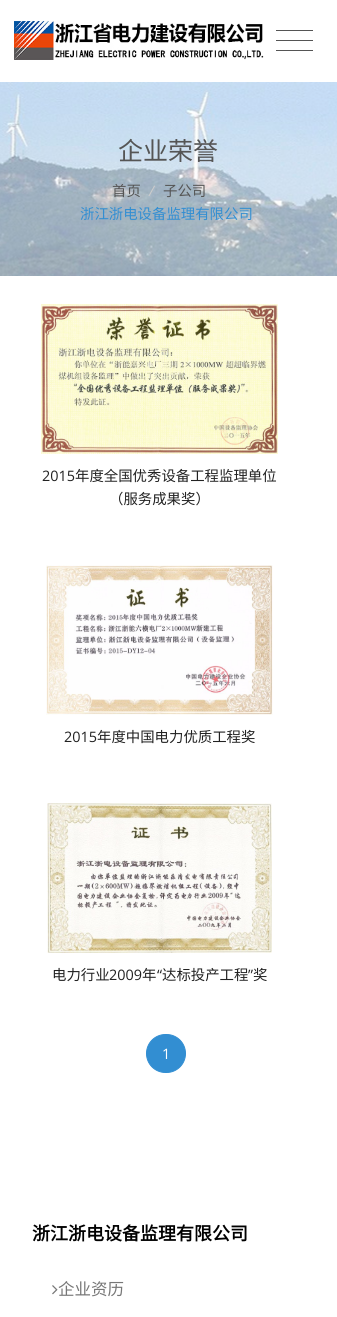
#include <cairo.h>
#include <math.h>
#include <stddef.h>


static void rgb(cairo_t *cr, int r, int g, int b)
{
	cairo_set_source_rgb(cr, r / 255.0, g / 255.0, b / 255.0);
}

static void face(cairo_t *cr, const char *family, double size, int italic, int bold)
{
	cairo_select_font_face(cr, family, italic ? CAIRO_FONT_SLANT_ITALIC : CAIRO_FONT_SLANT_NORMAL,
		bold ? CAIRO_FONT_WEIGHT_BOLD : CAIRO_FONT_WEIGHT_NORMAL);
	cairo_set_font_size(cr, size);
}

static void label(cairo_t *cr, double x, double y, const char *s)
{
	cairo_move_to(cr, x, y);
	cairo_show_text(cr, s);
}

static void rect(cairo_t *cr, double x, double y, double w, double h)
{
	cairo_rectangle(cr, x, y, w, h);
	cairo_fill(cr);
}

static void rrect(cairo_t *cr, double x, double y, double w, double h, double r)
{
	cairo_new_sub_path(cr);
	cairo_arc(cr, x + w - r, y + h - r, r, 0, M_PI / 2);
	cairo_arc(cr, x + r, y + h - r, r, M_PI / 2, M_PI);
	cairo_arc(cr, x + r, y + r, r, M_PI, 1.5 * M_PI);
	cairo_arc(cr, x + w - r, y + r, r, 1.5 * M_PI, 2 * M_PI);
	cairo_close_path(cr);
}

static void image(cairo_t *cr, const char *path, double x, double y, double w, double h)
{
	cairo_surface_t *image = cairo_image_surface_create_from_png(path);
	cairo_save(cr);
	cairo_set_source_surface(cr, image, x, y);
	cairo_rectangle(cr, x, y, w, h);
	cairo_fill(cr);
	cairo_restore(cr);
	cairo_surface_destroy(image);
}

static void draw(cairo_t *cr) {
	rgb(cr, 255, 255, 255);
	cairo_paint(cr);
	image(cr, "image0.png", 14, 21, 250, 39);
	rgb(cr, 85, 85, 85);
	rect(cr, 276, 30, 37, 1);
	rect(cr, 276, 40, 37, 1);
	rect(cr, 276, 50, 37, 1);
	image(cr, "image1.png", 0, 82, 337, 194);
	face(cr, "Noto Sans CJK SC", 25, 0, 0);
	label(cr, 118, 160, "企业荣誉");
	face(cr, "Noto Sans CJK SC", 14.4, 0, 0);
	label(cr, 112, 196, "首页");
	face(cr, "Open Sans", 14.4, 1, 0);
	rgb(cr, 204, 204, 204);
	label(cr, 149, 196, "/");
	face(cr, "Noto Sans CJK SC", 14.4, 0, 0);
	rgb(cr, 85, 85, 85);
	label(cr, 163, 196, "子公司");
	rgb(cr, 50, 142, 210);
	label(cr, 80, 219, "浙江浙电设备监理有限公司");
	image(cr, "image2.png", 41, 304, 237, 150);
	face(cr, "Open Sans", 14.4, 0, 0);
	rgb(cr, 34, 34, 34);
	label(cr, 42, 481, "2015");
	face(cr, "Noto Sans CJK SC", 14.4, 0, 0);
	label(cr, 75, 481, "年度全国优秀设备工程监理单位");
	label(cr, 109, 504, "（服务成果奖）");
	image(cr, "image3.png", 46, 565, 227, 150);
	face(cr, "Open Sans", 14.4, 0, 0);
	label(cr, 64, 742, "2015");
	face(cr, "Noto Sans CJK SC", 14.4, 0, 0);
	label(cr, 97, 742, "年度中国电力优质工程奖");
	image(cr, "image4.png", 47, 803, 225, 150);
	label(cr, 52, 980, "电力行业");
	face(cr, "Open Sans", 14.4, 0, 0);
	label(cr, 109, 980, "2009");
	face(cr, "Noto Sans CJK SC", 14.4, 0, 0);
	label(cr, 142, 980, "年");
	face(cr, "Open Sans", 14.4, 0, 0);
	label(cr, 157, 980, "“");
	face(cr, "Noto Sans CJK SC", 14.4, 0, 0);
	label(cr, 162, 980, "达标投产工程");
	face(cr, "Open Sans", 14.4, 0, 0);
	label(cr, 248, 980, "”");
	face(cr, "Noto Sans CJK SC", 14.4, 0, 0);
	label(cr, 253, 980, "奖");
	rgb(cr, 50, 142, 210);
	rrect(cr, 146.5, 1034.5, 39, 38, 19);
	cairo_fill_preserve(cr);
	cairo_set_line_width(cr, 1);
	cairo_stroke(cr);
	face(cr, "Open Sans", 14.4, 0, 0);
	rgb(cr, 255, 255, 255);
	label(cr, 162, 1059, "1");
	face(cr, "Noto Sans CJK SC", 18, 0, 1);
	rgb(cr, 0, 0, 0);
	label(cr, 32, 1240, "浙江浙电设备监理有限公司");
	image(cr, "image5.png", 52, 1285, 6, 10);
	face(cr, "Noto Sans CJK SC", 16.5, 0, 0);
	rgb(cr, 119, 119, 119);
	label(cr, 58, 1295, "企业资历");
}

int main(void) {
	cairo_surface_t *surface = cairo_image_surface_create(CAIRO_FORMAT_RGB24, 337, 1317);
	cairo_t *cr = cairo_create(surface);
	cairo_font_options_t *options = cairo_font_options_create();
	cairo_font_options_set_hint_metrics(options, CAIRO_HINT_METRICS_OFF);
	cairo_font_options_set_hint_style(options, CAIRO_HINT_STYLE_NONE);
	cairo_set_font_options(cr, options);
	cairo_set_miter_limit(cr, 4);
	draw(cr);
	cairo_surface_write_to_png(surface, "render.png");
	cairo_font_options_destroy(options);
	cairo_destroy(cr);
	cairo_surface_destroy(surface);
	return 0;
}
